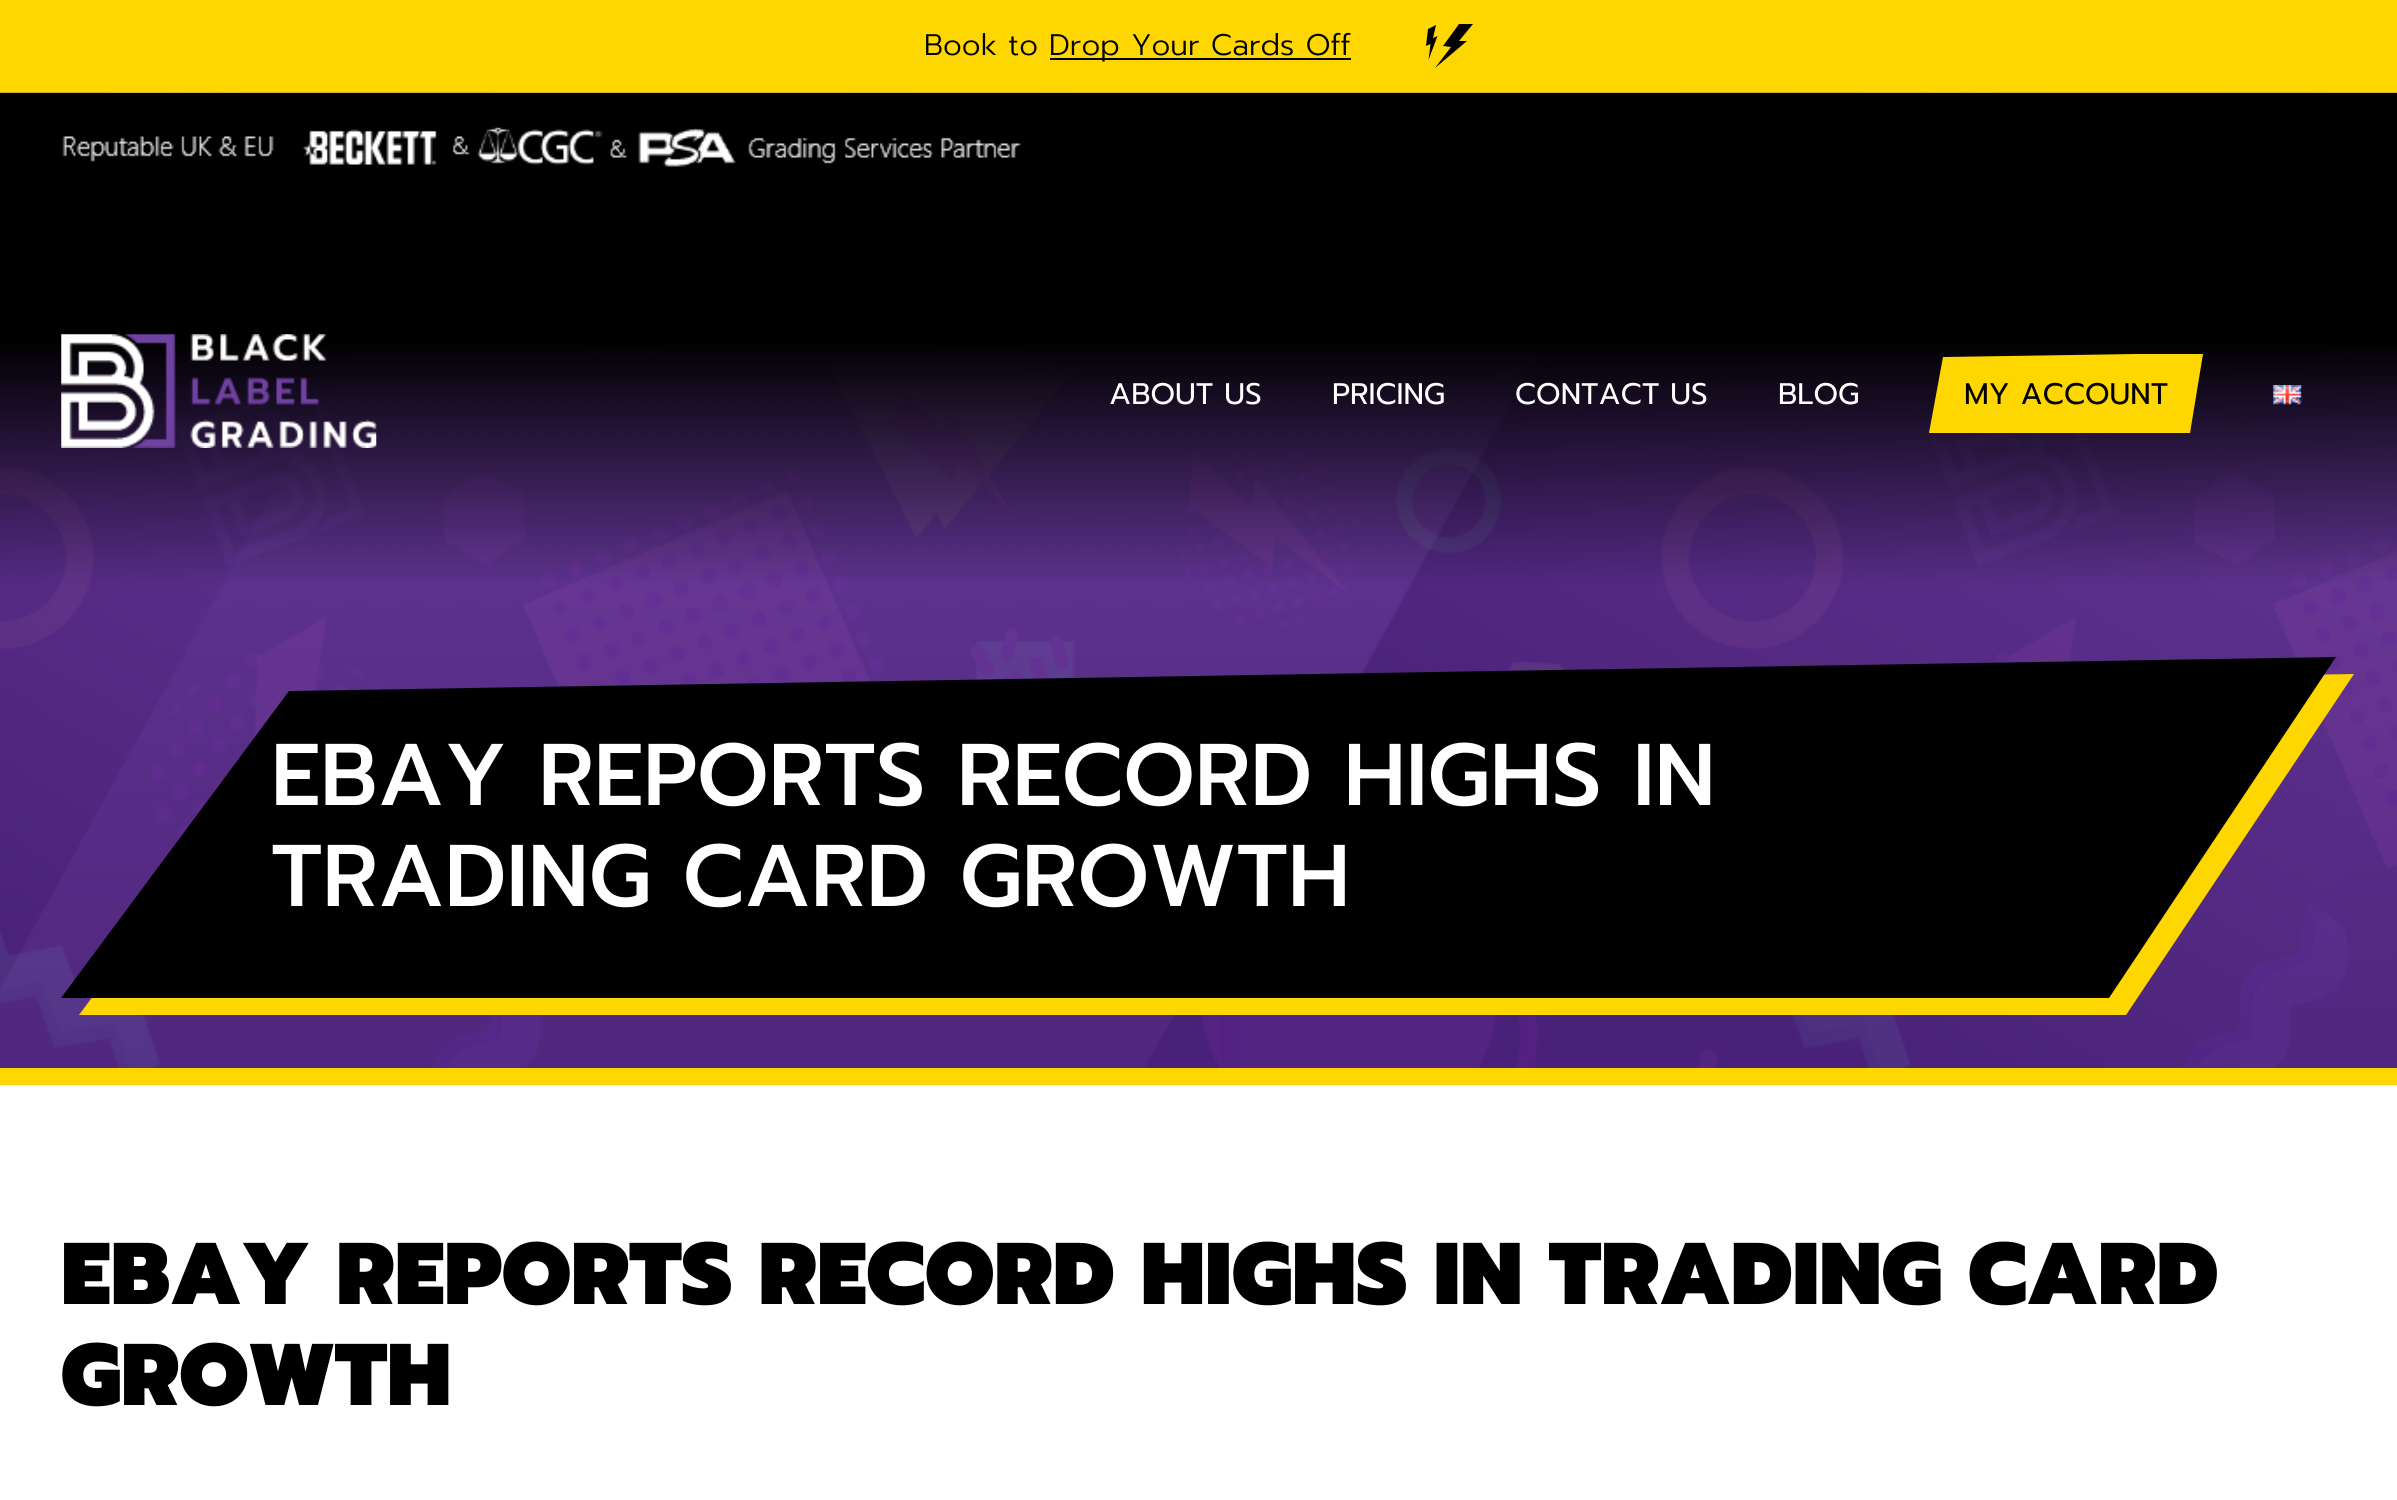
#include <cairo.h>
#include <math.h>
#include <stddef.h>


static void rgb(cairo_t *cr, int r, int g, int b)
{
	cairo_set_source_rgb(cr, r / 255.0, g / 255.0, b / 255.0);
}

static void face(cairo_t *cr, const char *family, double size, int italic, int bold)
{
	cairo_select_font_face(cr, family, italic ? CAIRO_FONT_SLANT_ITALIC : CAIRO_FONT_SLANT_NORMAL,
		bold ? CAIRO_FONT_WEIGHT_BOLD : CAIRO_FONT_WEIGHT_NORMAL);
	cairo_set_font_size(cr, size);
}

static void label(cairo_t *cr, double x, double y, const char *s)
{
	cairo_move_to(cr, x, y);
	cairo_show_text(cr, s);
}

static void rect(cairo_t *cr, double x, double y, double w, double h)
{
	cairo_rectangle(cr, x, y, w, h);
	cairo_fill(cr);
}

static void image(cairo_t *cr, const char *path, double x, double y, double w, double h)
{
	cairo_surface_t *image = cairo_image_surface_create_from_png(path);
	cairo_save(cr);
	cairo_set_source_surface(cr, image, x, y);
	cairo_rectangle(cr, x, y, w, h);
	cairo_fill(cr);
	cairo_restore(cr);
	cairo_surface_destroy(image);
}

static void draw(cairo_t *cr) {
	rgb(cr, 255, 255, 255);
	cairo_paint(cr);
	rgb(cr, 255, 215, 0);
	rect(cr, 0, 0, 2397, 93);
	face(cr, "Prompt Light", 29.75, 0, 0);
	rgb(cr, 0, 0, 0);
	label(cr, 924, 55, "Book to");
	rect(cr, 1050, 58, 301, 2);
	label(cr, 1049, 55, "Drop Your Cards Off");
	cairo_new_path(cr);
	cairo_move_to(cr, 1459, 24);
	cairo_line_to(cr, 1443, 46);
	cairo_line_to(cr, 1451, 47);
	cairo_line_to(cr, 1435, 68);
	cairo_line_to(cr, 1467, 41);
	cairo_line_to(cr, 1459, 41);
	cairo_line_to(cr, 1473, 24);
	cairo_close_path(cr);
	cairo_fill(cr);
	cairo_new_path(cr);
	cairo_move_to(cr, 1428, 29);
	cairo_line_to(cr, 1426, 46);
	cairo_line_to(cr, 1430.5, 44);
	cairo_line_to(cr, 1428.5, 60);
	cairo_line_to(cr, 1437.5, 36);
	cairo_line_to(cr, 1433, 38);
	cairo_line_to(cr, 1436, 25);
	cairo_close_path(cr);
	cairo_fill(cr);
	image(cr, "image0.png", 0, 92, 2397, 976);
	rgb(cr, 255, 215, 0);
	rect(cr, 0, 1068, 2397, 17);
	image(cr, "image1.png", 62, 127, 959, 40);
	image(cr, "image2.png", 61, 334, 316, 114);
	face(cr, "Prompt", 29.75, 0, 0);
	rgb(cr, 255, 255, 255);
	label(cr, 1109, 404, "ABOUT US");
	label(cr, 1332, 404, "PRICING");
	label(cr, 1515, 404, "CONTACT US");
	label(cr, 1778, 404, "BLOG");
	rgb(cr, 255, 215, 0);
	cairo_new_path(cr);
	cairo_move_to(cr, 1943, 357);
	cairo_line_to(cr, 1929, 433);
	cairo_line_to(cr, 2190, 433);
	cairo_line_to(cr, 2203, 354);
	cairo_line_to(cr, 2134, 354);
	cairo_close_path(cr);
	cairo_fill(cr);
	rgb(cr, 0, 0, 0);
	label(cr, 1964, 404, "MY ACCOUNT");
	image(cr, "image3.png", 2273, 385, 29, 20);
	rgb(cr, 255, 215, 0);
	cairo_new_path(cr);
	cairo_move_to(cr, 306, 708);
	cairo_line_to(cr, 79, 1015);
	cairo_line_to(cr, 2126, 1015);
	cairo_line_to(cr, 2354, 674);
	cairo_close_path(cr);
	cairo_fill(cr);
	rgb(cr, 0, 0, 0);
	cairo_new_path(cr);
	cairo_move_to(cr, 289, 691);
	cairo_line_to(cr, 2336, 657);
	cairo_line_to(cr, 2109, 998);
	cairo_line_to(cr, 61, 998);
	cairo_close_path(cr);
	cairo_fill(cr);
	face(cr, "Prompt Medium", 87.5, 0, 0);
	rgb(cr, 255, 255, 255);
	label(cr, 271, 805, "EBAY REPORTS RECORD HIGHS IN");
	label(cr, 271, 906, "TRADING CARD GROWTH");
	face(cr, "Prompt Black", 87.5, 0, 0);
	rgb(cr, 0, 0, 0);
	label(cr, 61, 1304, "EBAY REPORTS RECORD HIGHS IN TRADING CARD");
	label(cr, 61, 1405, "GROWTH");
}

int main(void) {
	cairo_surface_t *surface = cairo_image_surface_create(CAIRO_FORMAT_RGB24, 2397, 1500);
	cairo_t *cr = cairo_create(surface);
	cairo_font_options_t *options = cairo_font_options_create();
	cairo_font_options_set_hint_metrics(options, CAIRO_HINT_METRICS_OFF);
	cairo_font_options_set_hint_style(options, CAIRO_HINT_STYLE_NONE);
	cairo_set_font_options(cr, options);
	cairo_set_miter_limit(cr, 4);
	draw(cr);
	cairo_surface_write_to_png(surface, "render.png");
	cairo_font_options_destroy(options);
	cairo_destroy(cr);
	cairo_surface_destroy(surface);
	return 0;
}
